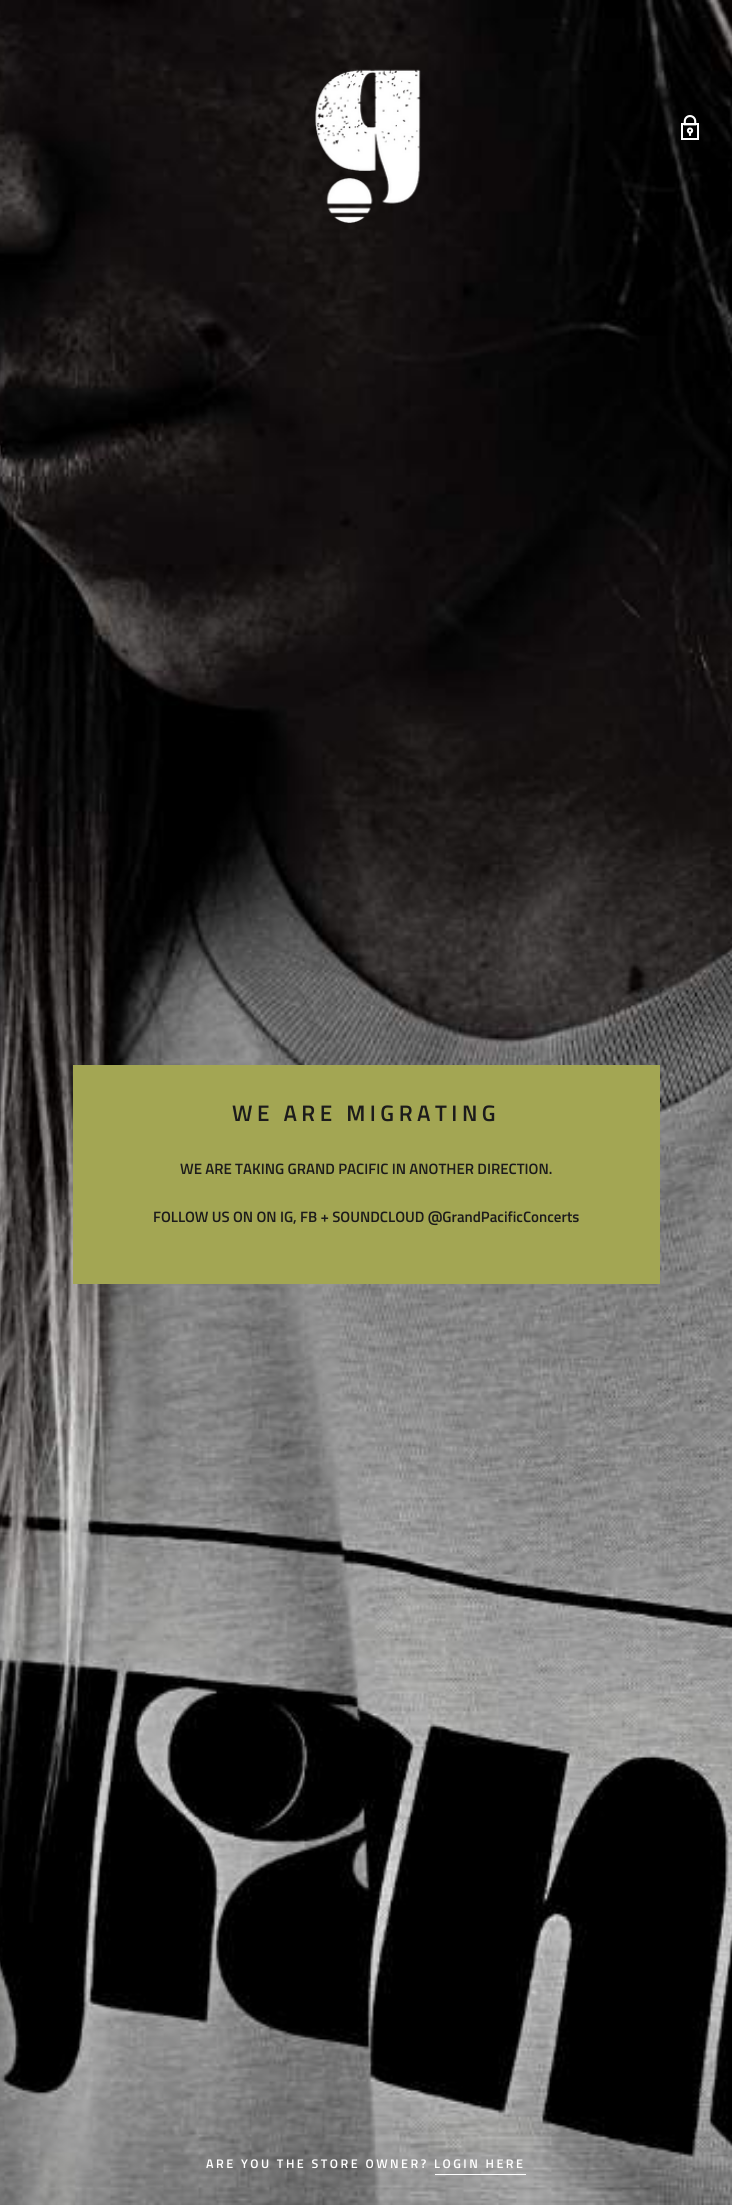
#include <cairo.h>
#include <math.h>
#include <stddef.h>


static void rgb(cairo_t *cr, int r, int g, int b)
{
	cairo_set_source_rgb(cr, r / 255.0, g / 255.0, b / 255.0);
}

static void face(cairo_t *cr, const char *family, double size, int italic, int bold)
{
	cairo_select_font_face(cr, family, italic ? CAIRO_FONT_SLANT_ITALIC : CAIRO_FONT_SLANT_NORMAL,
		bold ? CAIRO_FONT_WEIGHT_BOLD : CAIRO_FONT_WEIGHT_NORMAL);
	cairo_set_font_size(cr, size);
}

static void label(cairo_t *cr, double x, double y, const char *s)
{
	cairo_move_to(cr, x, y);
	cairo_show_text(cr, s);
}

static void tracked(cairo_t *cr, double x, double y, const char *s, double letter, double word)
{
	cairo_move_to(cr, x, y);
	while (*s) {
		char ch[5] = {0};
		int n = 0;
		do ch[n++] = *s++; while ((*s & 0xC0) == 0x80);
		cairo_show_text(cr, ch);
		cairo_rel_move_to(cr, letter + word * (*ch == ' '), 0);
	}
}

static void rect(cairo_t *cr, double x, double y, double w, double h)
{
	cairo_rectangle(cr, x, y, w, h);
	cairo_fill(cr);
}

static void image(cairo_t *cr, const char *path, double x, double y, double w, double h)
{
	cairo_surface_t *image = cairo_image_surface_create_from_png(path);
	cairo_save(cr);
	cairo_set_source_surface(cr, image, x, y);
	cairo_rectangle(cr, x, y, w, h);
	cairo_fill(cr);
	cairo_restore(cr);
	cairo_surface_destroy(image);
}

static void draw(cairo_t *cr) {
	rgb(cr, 255, 255, 255);
	cairo_paint(cr);
	image(cr, "image0.png", 0, 0, 732, 2205);
	image(cr, "image1.png", 315, 69, 106, 154);
	image(cr, "image2.png", 681, 115, 18, 25);
	rgb(cr, 163, 166, 83);
	rect(cr, 73, 1065, 587, 219);
	face(cr, "Titillium Web SemiBold", 22.5, 0, 0);
	rgb(cr, 28, 27, 27);
	tracked(cr, 232, 1121, "WE ARE MIGRATING", 4.5, 0);
	face(cr, "Titillium Web SemiBold", 15, 0, 0);
	label(cr, 180, 1174, "WE ARE TAKING GRAND PACIFIC IN ANOTHER DIRECTION.");
	label(cr, 153, 1222, "FOLLOW US ON ON IG, FB + SOUNDCLOUD @GrandPacificConcerts");
	face(cr, "Titillium Web SemiBold", 12.5, 0, 0);
	rgb(cr, 255, 255, 255);
	tracked(cr, 206, 2168, "ARE YOU THE STORE OWNER? LOGIN HERE", 2.5, 0);
	rect(cr, 435, 2174, 91, 1);
}

int main(void) {
	cairo_surface_t *surface = cairo_image_surface_create(CAIRO_FORMAT_RGB24, 732, 2205);
	cairo_t *cr = cairo_create(surface);
	cairo_font_options_t *options = cairo_font_options_create();
	cairo_font_options_set_hint_metrics(options, CAIRO_HINT_METRICS_OFF);
	cairo_font_options_set_hint_style(options, CAIRO_HINT_STYLE_NONE);
	cairo_set_font_options(cr, options);
	cairo_set_miter_limit(cr, 4);
	draw(cr);
	cairo_surface_write_to_png(surface, "render.png");
	cairo_font_options_destroy(options);
	cairo_destroy(cr);
	cairo_surface_destroy(surface);
	return 0;
}
